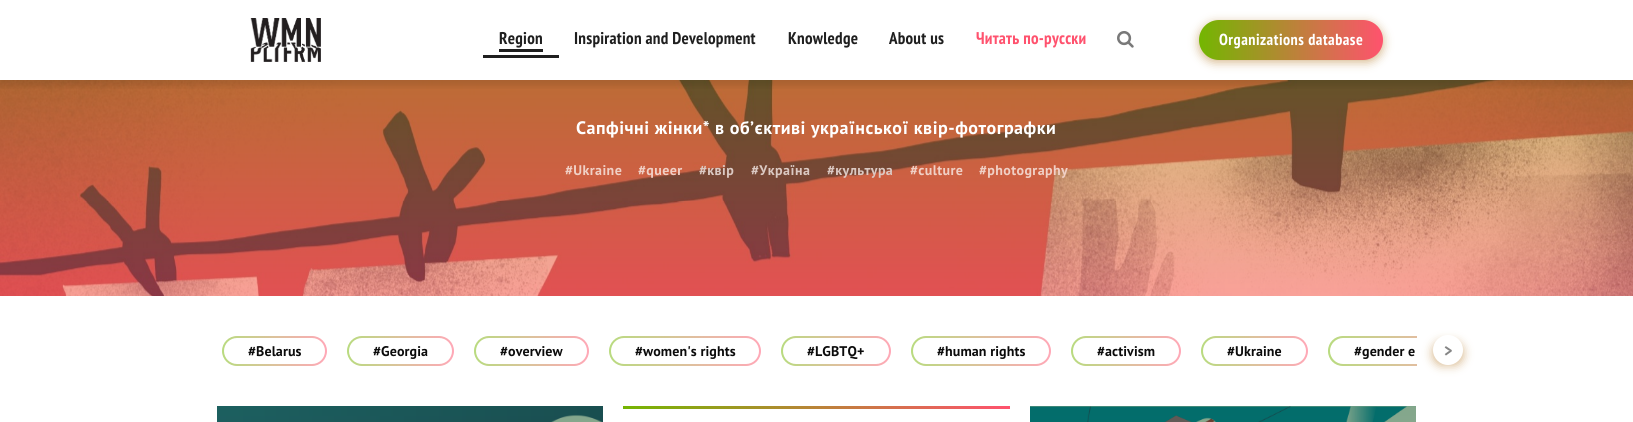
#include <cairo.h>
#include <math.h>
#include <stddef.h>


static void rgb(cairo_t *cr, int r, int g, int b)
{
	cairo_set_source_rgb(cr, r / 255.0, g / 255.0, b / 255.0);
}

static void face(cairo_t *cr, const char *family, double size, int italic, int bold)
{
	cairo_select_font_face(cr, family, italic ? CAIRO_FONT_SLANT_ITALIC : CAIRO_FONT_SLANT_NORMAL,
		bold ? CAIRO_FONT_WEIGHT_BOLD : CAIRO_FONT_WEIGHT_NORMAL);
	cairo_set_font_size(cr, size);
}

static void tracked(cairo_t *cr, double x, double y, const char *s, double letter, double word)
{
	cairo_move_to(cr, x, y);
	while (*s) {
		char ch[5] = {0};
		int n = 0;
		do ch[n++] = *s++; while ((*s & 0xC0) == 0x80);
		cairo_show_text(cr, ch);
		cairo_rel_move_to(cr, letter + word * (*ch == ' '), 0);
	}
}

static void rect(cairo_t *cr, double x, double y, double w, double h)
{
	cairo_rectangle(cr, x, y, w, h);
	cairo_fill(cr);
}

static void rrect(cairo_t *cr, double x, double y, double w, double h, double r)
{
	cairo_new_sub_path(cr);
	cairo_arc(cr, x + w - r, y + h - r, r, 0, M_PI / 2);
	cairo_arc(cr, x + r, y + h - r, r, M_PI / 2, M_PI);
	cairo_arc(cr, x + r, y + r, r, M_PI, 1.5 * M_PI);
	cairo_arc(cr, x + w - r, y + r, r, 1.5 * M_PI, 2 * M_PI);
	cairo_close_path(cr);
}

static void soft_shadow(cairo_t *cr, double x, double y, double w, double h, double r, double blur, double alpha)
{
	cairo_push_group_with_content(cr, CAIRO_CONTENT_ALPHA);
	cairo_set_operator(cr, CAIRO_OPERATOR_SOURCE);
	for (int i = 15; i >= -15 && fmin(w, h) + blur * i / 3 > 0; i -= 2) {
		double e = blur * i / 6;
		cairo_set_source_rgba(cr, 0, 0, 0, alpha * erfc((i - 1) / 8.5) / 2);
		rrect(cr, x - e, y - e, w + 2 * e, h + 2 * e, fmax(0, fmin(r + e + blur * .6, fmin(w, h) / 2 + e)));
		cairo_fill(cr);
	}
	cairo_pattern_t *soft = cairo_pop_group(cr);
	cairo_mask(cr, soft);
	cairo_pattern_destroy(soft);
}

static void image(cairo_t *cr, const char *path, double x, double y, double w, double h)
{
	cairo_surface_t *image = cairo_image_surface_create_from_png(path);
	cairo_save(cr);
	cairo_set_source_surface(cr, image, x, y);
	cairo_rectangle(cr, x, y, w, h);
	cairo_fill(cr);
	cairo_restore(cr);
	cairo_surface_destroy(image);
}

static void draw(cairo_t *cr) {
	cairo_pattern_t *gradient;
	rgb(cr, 255, 255, 255);
	cairo_paint(cr);
	rgb(cr, 153, 153, 153);
	rect(cr, 1030, 406, 386, 1);
	image(cr, "image0.png", 250, 18, 71, 44);
	face(cr, "PT Sans Narrow", 17, 0, 1);
	rgb(cr, 31, 31, 31);
	tracked(cr, 499, 44, "Region", 0.25, 0);
	rect(cr, 483, 55, 76, 3);
	rect(cr, 499, 49, 44, 3);
	tracked(cr, 574, 44, "Inspiration and Development", 0.25, 0);
	tracked(cr, 788, 44, "Knowledge", 0.25, 0);
	tracked(cr, 889, 44, "About us", 0.25, 0);
	rgb(cr, 255, 82, 110);
	tracked(cr, 976, 44, "Читать по-русски", 0.25, 0);
	image(cr, "image1.png", 1117, 31, 17, 17);
	rgb(cr, 213, 181, 135);
	soft_shadow(cr, 1199, 23, 184, 39, 19.5, 5, 1);
	gradient = cairo_pattern_create_linear(1199, 40, 1383, 40);
	cairo_pattern_add_color_stop_rgba(gradient, 0.01, 0.455, 0.71, 0.008, 1);
	cairo_pattern_add_color_stop_rgba(gradient, 1, 1, 0.322, 0.431, 1);
	cairo_set_source(cr, gradient);
	cairo_pattern_destroy(gradient);
	rrect(cr, 1199, 20, 184, 40, 20);
	cairo_fill(cr);
	face(cr, "PT Sans Narrow", 16, 0, 1);
	rgb(cr, 255, 255, 255);
	tracked(cr, 1219, 45, "Organizations database", 0.5, 0);
	image(cr, "image2.png", 0, 80, 1633, 216);
	cairo_save(cr);
	cairo_rectangle(cr, 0, 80, 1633, 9);
	cairo_clip(cr);
	rgb(cr, 0, 0, 0);
	soft_shadow(cr, 0, 74, 1633, 12, 0, 3, 0.1);
	cairo_restore(cr);
	face(cr, "PT Sans", 18, 0, 1);
	tracked(cr, 576, 134, "Сапфічні жінки* в об’єктиві української квір-фотографки", 0.5, 0);
	face(cr, "PT Sans", 14, 0, 1);
	rgb(cr, 240, 208, 198);
	tracked(cr, 565, 175, "#Ukraine", 0.4, 0);
	tracked(cr, 638, 175, "#queer", 0.4, 0);
	rgb(cr, 219, 201, 195);
	tracked(cr, 699, 175, "#квір", 0.4, 0);
	tracked(cr, 751, 175, "#Україна", 0.4, 0);
	tracked(cr, 827, 175, "#культура", 0.4, 0);
	rgb(cr, 240, 208, 198);
	tracked(cr, 910, 175, "#culture", 0.4, 0);
	tracked(cr, 979, 175, "#photography", 0.4, 0);
	gradient = cairo_pattern_create_linear(222, 351, 327, 351);
	cairo_pattern_add_color_stop_rgba(gradient, 0, 0.725, 0.859, 0.502, 1);
	cairo_pattern_add_color_stop_rgba(gradient, 1, 1, 0.659, 0.718, 1);
	cairo_set_source(cr, gradient);
	cairo_pattern_destroy(gradient);
	rrect(cr, 222, 336, 105, 30, 15);
	cairo_fill(cr);
	rgb(cr, 255, 255, 255);
	rrect(cr, 224, 338, 101, 26, 13);
	cairo_fill(cr);
	rgb(cr, 11, 11, 11);
	tracked(cr, 248, 356, "#Belarus", 0.1, 0);
	gradient = cairo_pattern_create_linear(347, 351, 454, 351);
	cairo_pattern_add_color_stop_rgba(gradient, 0, 0.725, 0.859, 0.502, 1);
	cairo_pattern_add_color_stop_rgba(gradient, 1, 1, 0.659, 0.718, 1);
	cairo_set_source(cr, gradient);
	cairo_pattern_destroy(gradient);
	rrect(cr, 347, 336, 107, 30, 15);
	cairo_fill(cr);
	rgb(cr, 255, 255, 255);
	rrect(cr, 349, 338, 103, 26, 13);
	cairo_fill(cr);
	rgb(cr, 11, 11, 11);
	tracked(cr, 373, 356, "#Georgia", 0.1, 0);
	gradient = cairo_pattern_create_linear(474, 351, 589, 351);
	cairo_pattern_add_color_stop_rgba(gradient, 0, 0.725, 0.859, 0.502, 1);
	cairo_pattern_add_color_stop_rgba(gradient, 1, 1, 0.659, 0.718, 1);
	cairo_set_source(cr, gradient);
	cairo_pattern_destroy(gradient);
	rrect(cr, 474, 336, 115, 30, 15);
	cairo_fill(cr);
	rgb(cr, 255, 255, 255);
	rrect(cr, 476, 338, 111, 26, 13);
	cairo_fill(cr);
	rgb(cr, 11, 11, 11);
	tracked(cr, 500, 356, "#overview", 0.1, 0);
	gradient = cairo_pattern_create_linear(609, 351, 761, 351);
	cairo_pattern_add_color_stop_rgba(gradient, 0, 0.725, 0.859, 0.502, 1);
	cairo_pattern_add_color_stop_rgba(gradient, 1, 1, 0.659, 0.718, 1);
	cairo_set_source(cr, gradient);
	cairo_pattern_destroy(gradient);
	rrect(cr, 609, 336, 152, 30, 15);
	cairo_fill(cr);
	rgb(cr, 255, 255, 255);
	rrect(cr, 611, 338, 148, 26, 13);
	cairo_fill(cr);
	rgb(cr, 11, 11, 11);
	tracked(cr, 635, 356, "#women's rights", 0.1, 0);
	gradient = cairo_pattern_create_linear(781, 351, 891, 351);
	cairo_pattern_add_color_stop_rgba(gradient, 0, 0.725, 0.859, 0.502, 1);
	cairo_pattern_add_color_stop_rgba(gradient, 1, 1, 0.659, 0.718, 1);
	cairo_set_source(cr, gradient);
	cairo_pattern_destroy(gradient);
	rrect(cr, 781, 336, 110, 30, 15);
	cairo_fill(cr);
	rgb(cr, 255, 255, 255);
	rrect(cr, 783, 338, 106, 26, 13);
	cairo_fill(cr);
	rgb(cr, 11, 11, 11);
	tracked(cr, 807, 356, "#LGBTQ+", 0.1, 0);
	gradient = cairo_pattern_create_linear(911, 351, 1051, 351);
	cairo_pattern_add_color_stop_rgba(gradient, 0, 0.725, 0.859, 0.502, 1);
	cairo_pattern_add_color_stop_rgba(gradient, 1, 1, 0.659, 0.718, 1);
	cairo_set_source(cr, gradient);
	cairo_pattern_destroy(gradient);
	rrect(cr, 911, 336, 140, 30, 15);
	cairo_fill(cr);
	rgb(cr, 255, 255, 255);
	rrect(cr, 913, 338, 136, 26, 13);
	cairo_fill(cr);
	rgb(cr, 11, 11, 11);
	tracked(cr, 937, 356, "#human rights", 0.1, 0);
	gradient = cairo_pattern_create_linear(1071, 351, 1181, 351);
	cairo_pattern_add_color_stop_rgba(gradient, 0, 0.725, 0.859, 0.502, 1);
	cairo_pattern_add_color_stop_rgba(gradient, 1, 1, 0.659, 0.718, 1);
	cairo_set_source(cr, gradient);
	cairo_pattern_destroy(gradient);
	rrect(cr, 1071, 336, 110, 30, 15);
	cairo_fill(cr);
	rgb(cr, 255, 255, 255);
	rrect(cr, 1073, 338, 106, 26, 13);
	cairo_fill(cr);
	rgb(cr, 11, 11, 11);
	tracked(cr, 1097, 356, "#activism", 0.1, 0);
	gradient = cairo_pattern_create_linear(1201, 351, 1308, 351);
	cairo_pattern_add_color_stop_rgba(gradient, 0, 0.725, 0.859, 0.502, 1);
	cairo_pattern_add_color_stop_rgba(gradient, 1, 1, 0.659, 0.718, 1);
	cairo_set_source(cr, gradient);
	cairo_pattern_destroy(gradient);
	rrect(cr, 1201, 336, 107, 30, 15);
	cairo_fill(cr);
	rgb(cr, 255, 255, 255);
	rrect(cr, 1203, 338, 103, 26, 13);
	cairo_fill(cr);
	rgb(cr, 11, 11, 11);
	tracked(cr, 1227, 356, "#Ukraine", 0.1, 0);
	gradient = cairo_pattern_create_linear(1328, 351, 1484, 351);
	cairo_pattern_add_color_stop_rgba(gradient, 0, 0.725, 0.859, 0.502, 1);
	cairo_pattern_add_color_stop_rgba(gradient, 1, 1, 0.659, 0.718, 1);
	cairo_set_source(cr, gradient);
	cairo_pattern_destroy(gradient);
	cairo_new_path(cr);
	cairo_move_to(cr, 1343, 336);
	cairo_line_to(cr, 1417, 336);
	cairo_line_to(cr, 1417, 366);
	cairo_line_to(cr, 1343, 366);
	cairo_curve_to(cr, 1334.5, 366, 1328, 359.5, 1328, 351);
	cairo_curve_to(cr, 1328, 342.5, 1334.5, 336, 1343, 336);
	cairo_close_path(cr);
	cairo_fill(cr);
	rgb(cr, 255, 255, 255);
	cairo_new_path(cr);
	cairo_move_to(cr, 1343, 338);
	cairo_line_to(cr, 1417, 338);
	cairo_line_to(cr, 1417, 364);
	cairo_line_to(cr, 1343, 364);
	cairo_curve_to(cr, 1336, 364, 1330, 358, 1330, 351);
	cairo_curve_to(cr, 1330, 344, 1336, 338, 1343, 338);
	cairo_close_path(cr);
	cairo_fill(cr);
	rgb(cr, 11, 11, 11);
	tracked(cr, 1354, 356, "#gender e", 0.1, 0);
	rgb(cr, 214, 181, 136);
	soft_shadow(cr, 1433, 342, 30, 23, 11.5, 5, 1);
	rgb(cr, 255, 255, 255);
	cairo_arc(cr, 1448, 350, 15, 0, 2 * M_PI);
	cairo_fill(cr);
	face(cr, "PT Sans Narrow", 19, 0, 1);
	rgb(cr, 133, 133, 133);
	tracked(cr, 1444, 357, ">", 1, 0);
	image(cr, "image3.png", 217, 406, 386, 16);
	gradient = cairo_pattern_create_linear(623, 408, 1010, 408);
	cairo_pattern_add_color_stop_rgba(gradient, 0, 0.455, 0.71, 0.008, 1);
	cairo_pattern_add_color_stop_rgba(gradient, 1, 1, 0.322, 0.431, 1);
	cairo_set_source(cr, gradient);
	cairo_pattern_destroy(gradient);
	rect(cr, 623, 406, 387, 3);
	image(cr, "image4.png", 1030, 406, 386, 16);
	gradient = cairo_pattern_create_linear(1223, 406, 1223, 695);
	cairo_pattern_add_color_stop_rgba(gradient, 0, 0, 1, 0.22, 0.14);
	cairo_pattern_add_color_stop_rgba(gradient, 1, 0, 1, 0.22, 0);
	cairo_set_source(cr, gradient);
	cairo_pattern_destroy(gradient);
	rect(cr, 1030, 406, 386, 16);
}

int main(void) {
	cairo_surface_t *surface = cairo_image_surface_create(CAIRO_FORMAT_RGB24, 1633, 422);
	cairo_t *cr = cairo_create(surface);
	cairo_font_options_t *options = cairo_font_options_create();
	cairo_font_options_set_hint_metrics(options, CAIRO_HINT_METRICS_OFF);
	cairo_font_options_set_hint_style(options, CAIRO_HINT_STYLE_NONE);
	cairo_set_font_options(cr, options);
	cairo_set_miter_limit(cr, 4);
	draw(cr);
	cairo_surface_write_to_png(surface, "render.png");
	cairo_font_options_destroy(options);
	cairo_destroy(cr);
	cairo_surface_destroy(surface);
	return 0;
}
